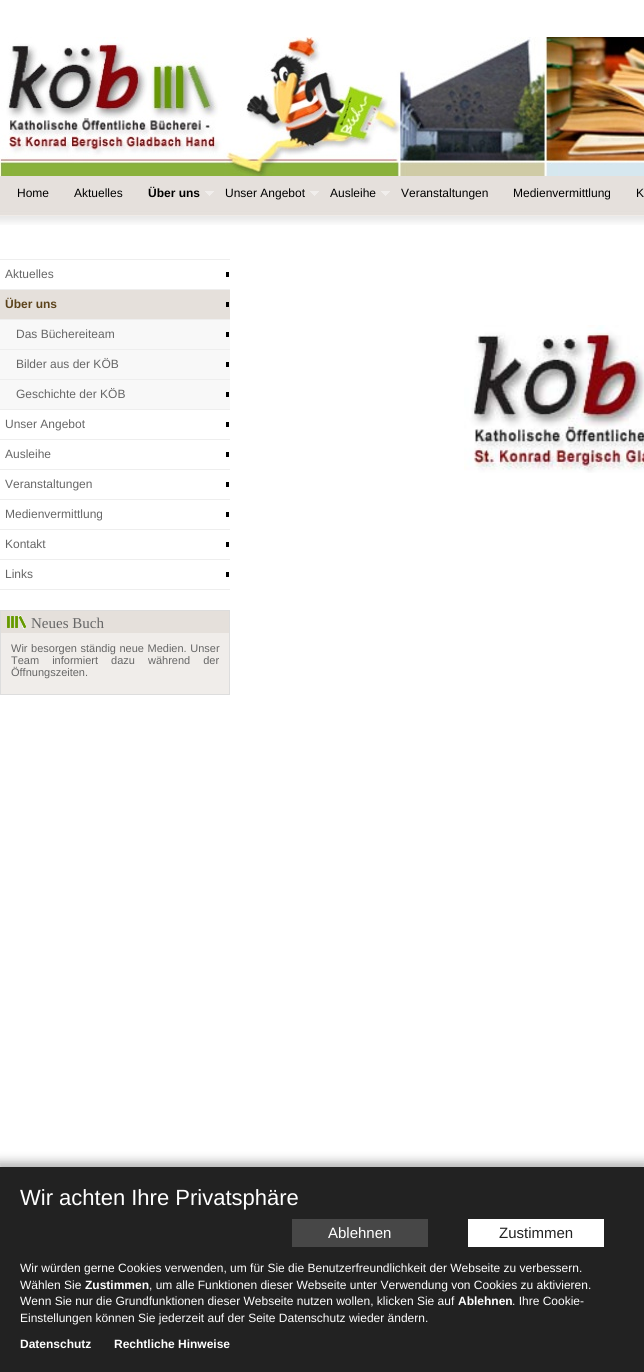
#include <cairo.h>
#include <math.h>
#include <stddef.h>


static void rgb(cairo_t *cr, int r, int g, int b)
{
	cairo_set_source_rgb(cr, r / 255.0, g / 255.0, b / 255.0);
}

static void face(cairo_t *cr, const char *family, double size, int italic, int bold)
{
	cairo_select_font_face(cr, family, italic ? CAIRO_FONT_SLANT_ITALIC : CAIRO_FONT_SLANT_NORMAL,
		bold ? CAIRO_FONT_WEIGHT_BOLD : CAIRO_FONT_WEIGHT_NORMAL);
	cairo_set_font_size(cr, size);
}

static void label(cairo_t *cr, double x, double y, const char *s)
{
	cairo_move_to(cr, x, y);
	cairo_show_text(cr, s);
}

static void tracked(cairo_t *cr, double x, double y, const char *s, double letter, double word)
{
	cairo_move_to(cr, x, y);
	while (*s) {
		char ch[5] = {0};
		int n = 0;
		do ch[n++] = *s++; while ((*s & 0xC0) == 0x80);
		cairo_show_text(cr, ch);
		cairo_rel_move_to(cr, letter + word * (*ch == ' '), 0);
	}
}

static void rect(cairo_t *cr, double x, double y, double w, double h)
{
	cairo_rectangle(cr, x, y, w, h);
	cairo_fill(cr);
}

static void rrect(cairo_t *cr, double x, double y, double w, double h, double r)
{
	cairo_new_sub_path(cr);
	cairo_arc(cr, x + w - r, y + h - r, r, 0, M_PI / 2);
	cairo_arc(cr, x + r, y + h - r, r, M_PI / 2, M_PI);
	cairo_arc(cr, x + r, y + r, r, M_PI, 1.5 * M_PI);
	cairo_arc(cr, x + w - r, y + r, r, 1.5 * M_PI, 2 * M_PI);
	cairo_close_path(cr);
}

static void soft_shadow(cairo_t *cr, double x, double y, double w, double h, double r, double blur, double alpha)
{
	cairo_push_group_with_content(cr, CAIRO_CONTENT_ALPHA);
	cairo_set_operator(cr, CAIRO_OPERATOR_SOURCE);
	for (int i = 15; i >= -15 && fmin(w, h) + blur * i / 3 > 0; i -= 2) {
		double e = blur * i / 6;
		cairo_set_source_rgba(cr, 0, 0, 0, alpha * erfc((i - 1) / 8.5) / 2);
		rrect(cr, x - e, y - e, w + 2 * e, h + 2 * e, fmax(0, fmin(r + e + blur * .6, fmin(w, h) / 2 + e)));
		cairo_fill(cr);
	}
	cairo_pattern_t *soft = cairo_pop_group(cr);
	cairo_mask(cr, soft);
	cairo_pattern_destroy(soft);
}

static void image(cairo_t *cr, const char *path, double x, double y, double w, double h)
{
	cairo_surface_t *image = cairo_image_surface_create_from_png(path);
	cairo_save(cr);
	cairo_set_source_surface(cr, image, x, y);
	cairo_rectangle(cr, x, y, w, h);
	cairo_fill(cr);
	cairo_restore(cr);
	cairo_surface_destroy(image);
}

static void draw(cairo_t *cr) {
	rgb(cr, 255, 255, 255);
	cairo_paint(cr);
	image(cr, "image0.png", 0, 37, 644, 139);
	image(cr, "image1.png", 0, 176, 644, 49);
	face(cr, "Liberation Sans", 12, 0, 0);
	rgb(cr, 0, 0, 0);
	label(cr, 17, 197, "Home");
	label(cr, 74, 197, "Aktuelles");
	face(cr, "Liberation Sans", 12, 0, 1);
	label(cr, 148, 197, "Über uns");
	image(cr, "image2.png", 205, 191, 9, 5);
	face(cr, "Liberation Sans", 12, 0, 0);
	label(cr, 225, 197, "Unser Angebot");
	image(cr, "image2.png", 310, 191, 9, 5);
	label(cr, 330, 197, "Ausleihe");
	image(cr, "image2.png", 381, 191, 9, 5);
	label(cr, 401, 197, "Veranstaltungen");
	label(cr, 513, 197, "Medienvermittlung");
	label(cr, 636, 197, "K");
	rgb(cr, 238, 238, 238);
	rect(cr, 0, 259, 230, 1);
	rgb(cr, 0, 0, 0);
	rect(cr, 226, 272, 3, 5);
	rgb(cr, 238, 238, 238);
	rect(cr, 0, 289, 230, 1);
	rgb(cr, 102, 102, 102);
	label(cr, 5, 278, "Aktuelles");
	rgb(cr, 229, 224, 219);
	rect(cr, 0, 290, 230, 29);
	rgb(cr, 0, 0, 0);
	rect(cr, 226, 302, 3, 5);
	rgb(cr, 238, 238, 238);
	rect(cr, 0, 319, 230, 1);
	face(cr, "Liberation Sans", 12, 0, 1);
	rgb(cr, 92, 67, 27);
	label(cr, 5, 308, "Über uns");
	rgb(cr, 248, 248, 248);
	rect(cr, 0, 320, 230, 29);
	rgb(cr, 0, 0, 0);
	rect(cr, 226, 332, 3, 5);
	rgb(cr, 238, 238, 238);
	rect(cr, 0, 349, 230, 1);
	face(cr, "Liberation Sans", 12, 0, 0);
	rgb(cr, 102, 102, 102);
	label(cr, 16, 338, "Das Büchereiteam");
	rgb(cr, 248, 248, 248);
	rect(cr, 0, 350, 230, 29);
	rgb(cr, 0, 0, 0);
	rect(cr, 226, 362, 3, 5);
	rgb(cr, 238, 238, 238);
	rect(cr, 0, 379, 230, 1);
	rgb(cr, 102, 102, 102);
	label(cr, 16, 368, "Bilder aus der KÖB");
	rgb(cr, 248, 248, 248);
	rect(cr, 0, 380, 230, 29);
	rgb(cr, 0, 0, 0);
	rect(cr, 226, 392, 3, 5);
	rgb(cr, 238, 238, 238);
	rect(cr, 0, 409, 230, 1);
	rgb(cr, 102, 102, 102);
	label(cr, 16, 398, "Geschichte der KÖB");
	rgb(cr, 0, 0, 0);
	rect(cr, 226, 422, 3, 5);
	rgb(cr, 238, 238, 238);
	rect(cr, 0, 439, 230, 1);
	rgb(cr, 102, 102, 102);
	label(cr, 5, 428, "Unser Angebot");
	rgb(cr, 0, 0, 0);
	rect(cr, 226, 452, 3, 5);
	rgb(cr, 238, 238, 238);
	rect(cr, 0, 469, 230, 1);
	rgb(cr, 102, 102, 102);
	label(cr, 5, 458, "Ausleihe");
	rgb(cr, 0, 0, 0);
	rect(cr, 226, 482, 3, 5);
	rgb(cr, 238, 238, 238);
	rect(cr, 0, 499, 230, 1);
	rgb(cr, 102, 102, 102);
	label(cr, 5, 488, "Veranstaltungen");
	rgb(cr, 0, 0, 0);
	rect(cr, 226, 512, 3, 5);
	rgb(cr, 238, 238, 238);
	rect(cr, 0, 529, 230, 1);
	rgb(cr, 102, 102, 102);
	label(cr, 5, 518, "Medienvermittlung");
	rgb(cr, 0, 0, 0);
	rect(cr, 226, 542, 3, 5);
	rgb(cr, 238, 238, 238);
	rect(cr, 0, 559, 230, 1);
	rgb(cr, 102, 102, 102);
	label(cr, 5, 548, "Kontakt");
	rgb(cr, 0, 0, 0);
	rect(cr, 226, 572, 3, 5);
	rgb(cr, 238, 238, 238);
	rect(cr, 0, 589, 230, 1);
	rgb(cr, 102, 102, 102);
	label(cr, 5, 578, "Links");
	rgb(cr, 240, 237, 234);
	rect(cr, 1, 633, 228, 61);
	cairo_rectangle(cr, 0.5, 610.5, 229, 84);
	rgb(cr, 221, 221, 221);
	cairo_set_line_width(cr, 1);
	cairo_stroke(cr);
	rgb(cr, 229, 224, 219);
	rect(cr, 1, 611, 228, 22);
	image(cr, "image3.png", 7, 615, 19, 14);
	face(cr, "Liberation Serif", 15, 0, 0);
	rgb(cr, 102, 102, 102);
	label(cr, 31, 628, "Neues Buch");
	face(cr, "Liberation Sans", 11, 0, 0);
	tracked(cr, 11, 652, "Wir besorgen ständig neue Medien. Unser", 0, 0.5);
	tracked(cr, 11, 664, "Team informiert dazu während der", 0, 10);
	label(cr, 11, 676, "Öffnungszeiten.");
	image(cr, "image4.png", 464, 325, 180, 148);
	rgb(cr, 0, 0, 0);
	soft_shadow(cr, -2, 1162, 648, 209, 0, 5, 0.3);
	rgb(cr, 34, 34, 34);
	rect(cr, 0, 1167, 644, 205);
	face(cr, "Liberation Sans", 22, 0, 0);
	rgb(cr, 255, 255, 255);
	label(cr, 20, 1205, "Wir achten Ihre Privatsphäre");
	rgb(cr, 71, 71, 71);
	rect(cr, 292, 1219, 136, 28);
	face(cr, "Liberation Sans", 15, 0, 0);
	rgb(cr, 255, 255, 255);
	label(cr, 328, 1238, "Ablehnen");
	rect(cr, 468, 1219, 136, 28);
	rgb(cr, 34, 34, 34);
	label(cr, 499, 1238, "Zustimmen");
	face(cr, "Liberation Sans", 12, 0, 0);
	rgb(cr, 255, 255, 255);
	label(cr, 20, 1272, "Wir würden gerne Cookies verwenden, um für Sie die Benutzerfreundlichkeit der Webseite zu verbessern.");
	label(cr, 20, 1289, "Wählen Sie");
	face(cr, "Liberation Sans", 12, 0, 1);
	label(cr, 85, 1289, "Zustimmen");
	face(cr, "Liberation Sans", 12, 0, 0);
	label(cr, 149, 1289, ", um alle Funktionen dieser Webseite unter Verwendung von Cookies zu aktivieren.");
	label(cr, 20, 1305, "Wenn Sie nur die Grundfunktionen dieser Webseite nutzen wollen, klicken Sie auf");
	face(cr, "Liberation Sans", 12, 0, 1);
	label(cr, 458, 1305, "Ablehnen");
	face(cr, "Liberation Sans", 12, 0, 0);
	label(cr, 512, 1305, ". Ihre Cookie-");
	label(cr, 20, 1322, "Einstellungen können Sie jederzeit auf der Seite Datenschutz wieder ändern.");
	face(cr, "Liberation Sans", 12, 0, 1);
	label(cr, 20, 1348, "Datenschutz");
	label(cr, 114, 1348, "Rechtliche Hinweise");
}

int main(void) {
	cairo_surface_t *surface = cairo_image_surface_create(CAIRO_FORMAT_RGB24, 644, 1372);
	cairo_t *cr = cairo_create(surface);
	cairo_font_options_t *options = cairo_font_options_create();
	cairo_font_options_set_hint_metrics(options, CAIRO_HINT_METRICS_OFF);
	cairo_font_options_set_hint_style(options, CAIRO_HINT_STYLE_NONE);
	cairo_set_font_options(cr, options);
	cairo_set_miter_limit(cr, 4);
	draw(cr);
	cairo_surface_write_to_png(surface, "render.png");
	cairo_font_options_destroy(options);
	cairo_destroy(cr);
	cairo_surface_destroy(surface);
	return 0;
}
